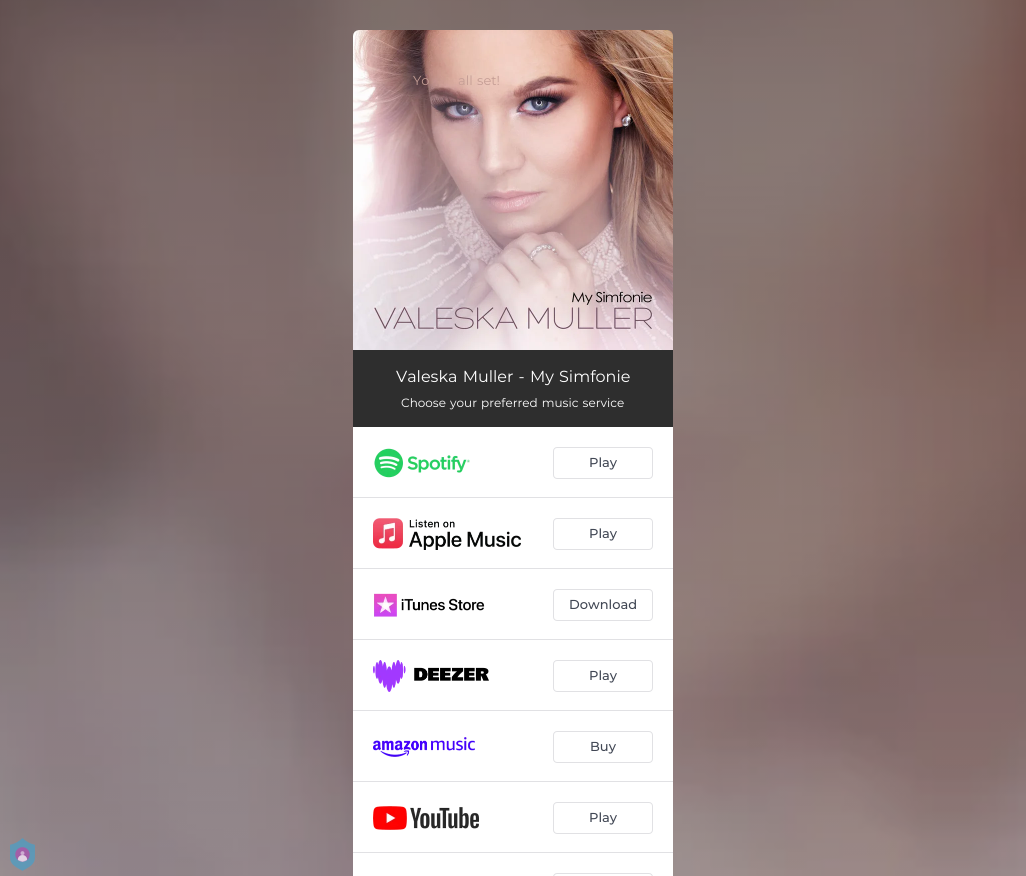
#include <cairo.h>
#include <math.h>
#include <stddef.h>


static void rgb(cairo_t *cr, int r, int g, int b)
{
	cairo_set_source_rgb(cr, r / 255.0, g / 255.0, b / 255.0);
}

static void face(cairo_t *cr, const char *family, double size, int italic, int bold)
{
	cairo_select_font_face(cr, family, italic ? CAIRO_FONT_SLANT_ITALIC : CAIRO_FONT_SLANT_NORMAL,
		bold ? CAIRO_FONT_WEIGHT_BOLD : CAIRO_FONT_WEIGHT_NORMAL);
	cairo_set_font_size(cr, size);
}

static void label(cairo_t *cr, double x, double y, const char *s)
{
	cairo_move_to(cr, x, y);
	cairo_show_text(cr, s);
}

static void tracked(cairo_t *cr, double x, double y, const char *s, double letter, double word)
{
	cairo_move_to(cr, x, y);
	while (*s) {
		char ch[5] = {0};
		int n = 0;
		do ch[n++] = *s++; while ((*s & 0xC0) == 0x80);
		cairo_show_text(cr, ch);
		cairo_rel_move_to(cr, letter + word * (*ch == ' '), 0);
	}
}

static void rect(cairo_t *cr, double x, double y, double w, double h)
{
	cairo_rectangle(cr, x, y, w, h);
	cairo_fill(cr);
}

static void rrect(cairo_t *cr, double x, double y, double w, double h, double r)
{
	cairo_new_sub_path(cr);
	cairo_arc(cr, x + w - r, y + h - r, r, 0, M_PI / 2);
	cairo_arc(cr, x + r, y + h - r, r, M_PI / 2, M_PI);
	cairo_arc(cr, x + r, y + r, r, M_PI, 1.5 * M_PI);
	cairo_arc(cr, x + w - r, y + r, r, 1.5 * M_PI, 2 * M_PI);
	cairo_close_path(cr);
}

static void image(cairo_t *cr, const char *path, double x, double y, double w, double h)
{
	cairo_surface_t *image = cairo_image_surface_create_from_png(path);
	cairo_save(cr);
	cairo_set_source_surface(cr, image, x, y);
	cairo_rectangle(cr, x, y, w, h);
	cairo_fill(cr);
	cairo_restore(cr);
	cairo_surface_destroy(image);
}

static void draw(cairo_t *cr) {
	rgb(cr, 255, 255, 255);
	cairo_paint(cr);
	image(cr, "image0.png", 0, 0, 1026, 876);
	image(cr, "image1.png", 353, 30, 320, 320);
	face(cr, "Montserrat", 13, 0, 0);
	rgb(cr, 196, 157, 148);
	tracked(cr, 413, 85, "Yo", 0, 1);
	tracked(cr, 458, 85, "all set!", 0, 1);
	rgb(cr, 46, 46, 46);
	rect(cr, 353, 350, 320, 77);
	face(cr, "Montserrat", 16, 0, 0);
	rgb(cr, 255, 255, 255);
	tracked(cr, 396, 382, "Valeska Muller - My Simfonie", 0, 1);
	face(cr, "Montserrat", 12, 0, 0);
	tracked(cr, 401, 407, "Choose your preferred music service", 0, 1);
	rect(cr, 353, 427, 320, 449);
	rgb(cr, 225, 225, 228);
	rect(cr, 353, 497, 320, 1);
	image(cr, "image2.png", 374, 448, 96, 30);
	rrect(cr, 553.5, 447.5, 99, 31, 3.5);
	cairo_set_line_width(cr, 1);
	cairo_stroke(cr);
	face(cr, "Montserrat Medium", 13, 0, 0);
	rgb(cr, 65, 71, 84);
	label(cr, 589, 467, "Play");
	rgb(cr, 225, 225, 228);
	rect(cr, 353, 568, 320, 1);
	image(cr, "image3.png", 373, 518, 148, 32);
	rrect(cr, 553.5, 518.5, 99, 31, 3.5);
	cairo_stroke(cr);
	rgb(cr, 65, 71, 84);
	label(cr, 589, 538, "Play");
	rgb(cr, 225, 225, 228);
	rect(cr, 353, 639, 320, 1);
	image(cr, "image4.png", 374, 593, 111, 24);
	rrect(cr, 553.5, 589.5, 99, 31, 3.5);
	cairo_stroke(cr);
	rgb(cr, 65, 71, 84);
	label(cr, 569, 609, "Download");
	rgb(cr, 225, 225, 228);
	rect(cr, 353, 710, 320, 1);
	image(cr, "image5.png", 373, 660, 116, 32);
	rrect(cr, 553.5, 660.5, 99, 31, 3.5);
	cairo_stroke(cr);
	rgb(cr, 65, 71, 84);
	label(cr, 589, 680, "Play");
	rgb(cr, 225, 225, 228);
	rect(cr, 353, 781, 320, 1);
	image(cr, "image6.png", 373, 737, 102, 20);
	rrect(cr, 553.5, 731.5, 99, 31, 3.5);
	cairo_stroke(cr);
	rgb(cr, 65, 71, 84);
	label(cr, 590, 751, "Buy");
	rgb(cr, 225, 225, 228);
	rect(cr, 353, 852, 320, 1);
	image(cr, "image7.png", 373, 806, 106, 24);
	rrect(cr, 553.5, 802.5, 99, 31, 3.5);
	cairo_stroke(cr);
	rgb(cr, 65, 71, 84);
	label(cr, 589, 822, "Play");
	rrect(cr, 553.5, 873.5, 99, 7, 3.5);
	rgb(cr, 225, 225, 228);
	cairo_stroke(cr);
	image(cr, "image8.png", 10, 838, 25, 33);
}

int main(void) {
	cairo_surface_t *surface = cairo_image_surface_create(CAIRO_FORMAT_RGB24, 1026, 876);
	cairo_t *cr = cairo_create(surface);
	cairo_font_options_t *options = cairo_font_options_create();
	cairo_font_options_set_hint_metrics(options, CAIRO_HINT_METRICS_OFF);
	cairo_font_options_set_hint_style(options, CAIRO_HINT_STYLE_NONE);
	cairo_set_font_options(cr, options);
	cairo_set_miter_limit(cr, 4);
	draw(cr);
	cairo_surface_write_to_png(surface, "render.png");
	cairo_font_options_destroy(options);
	cairo_destroy(cr);
	cairo_surface_destroy(surface);
	return 0;
}
